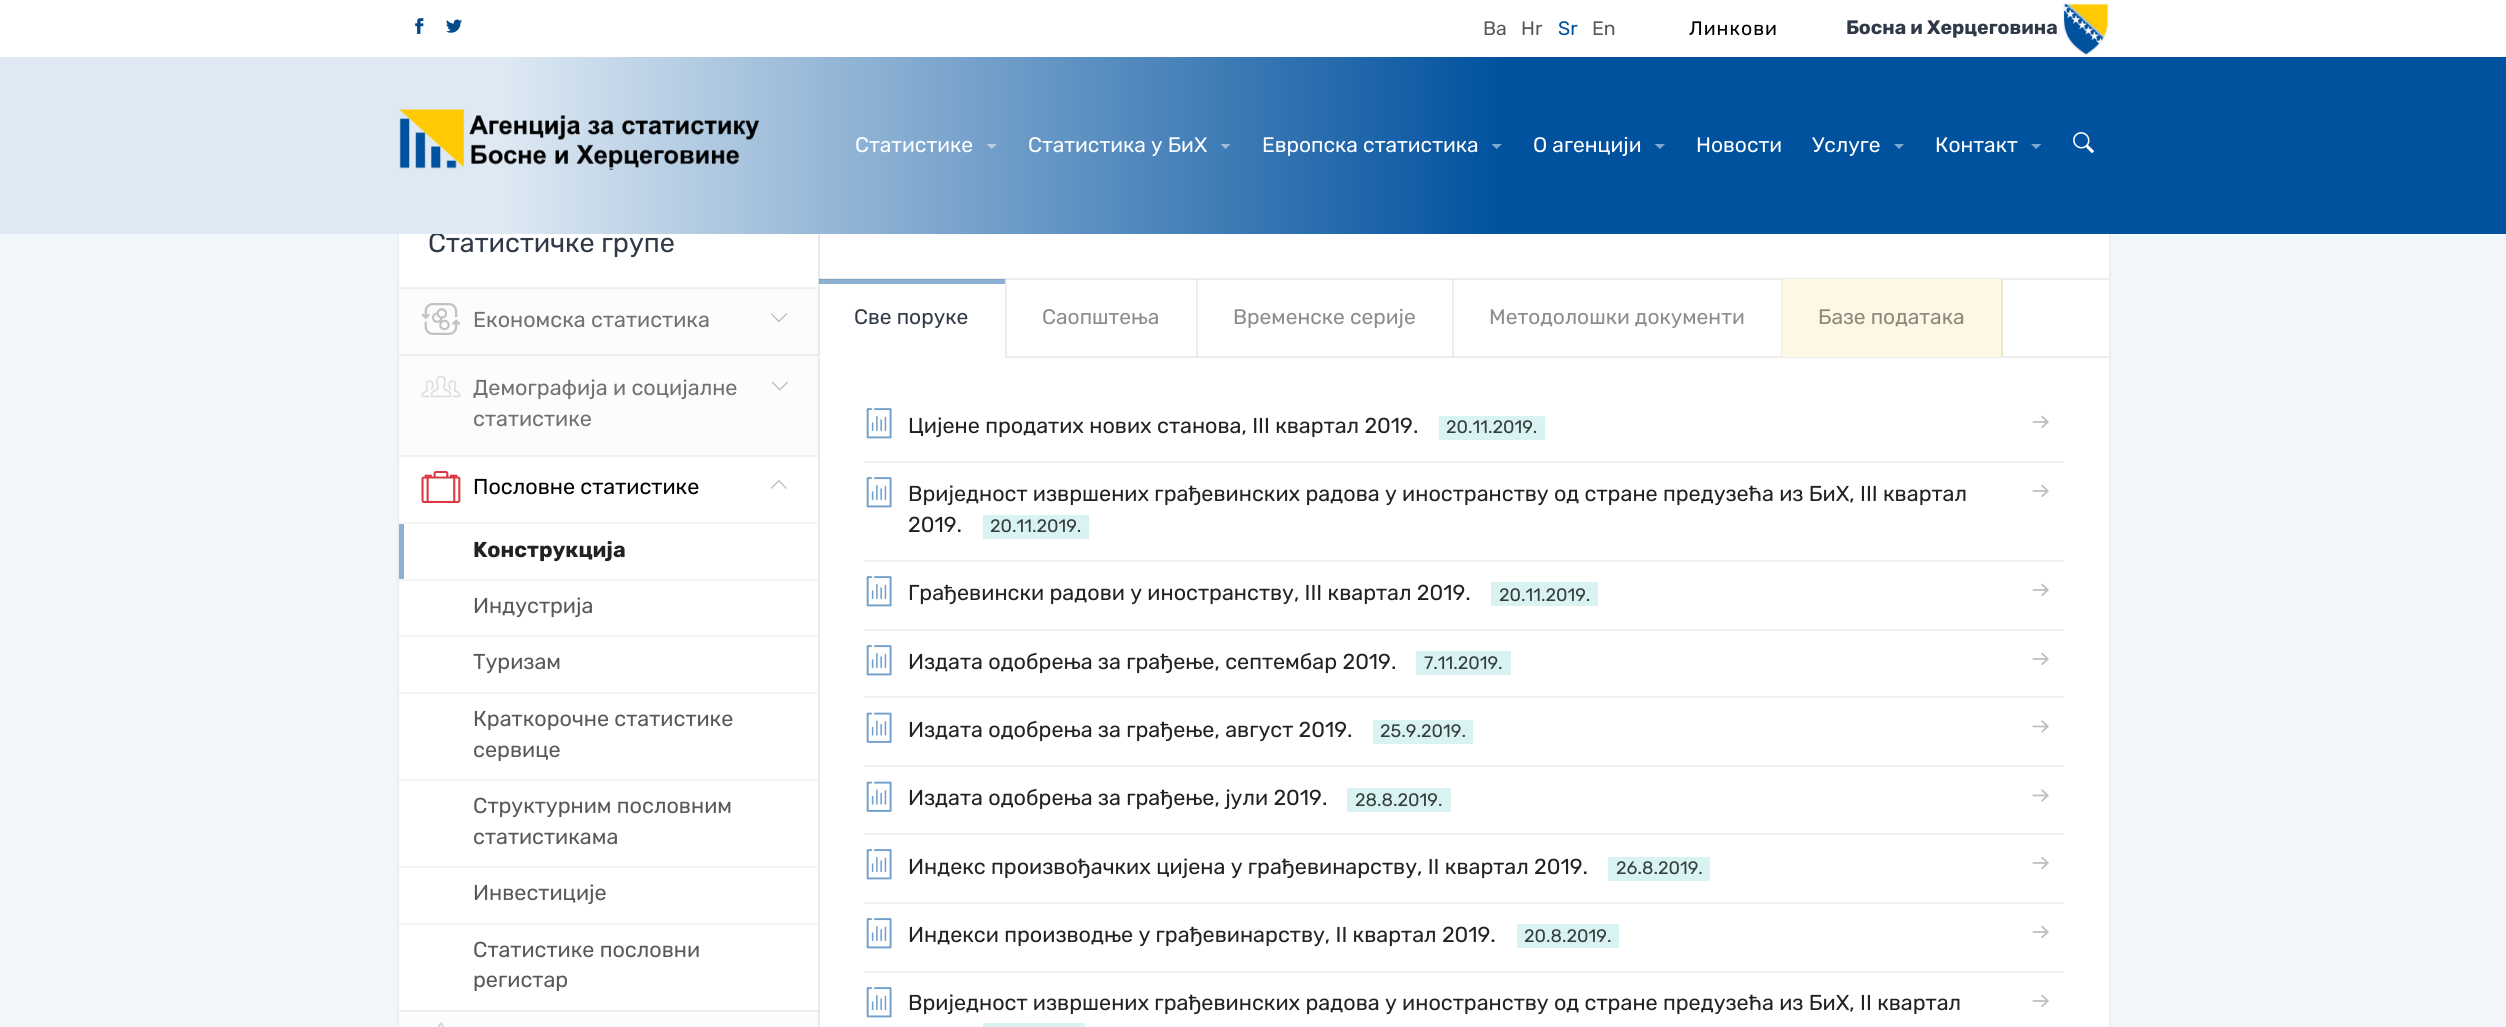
#include <cairo.h>
#include <math.h>
#include <stddef.h>


static void rgb(cairo_t *cr, int r, int g, int b)
{
	cairo_set_source_rgb(cr, r / 255.0, g / 255.0, b / 255.0);
}

static void face(cairo_t *cr, const char *family, double size, int italic, int bold)
{
	cairo_select_font_face(cr, family, italic ? CAIRO_FONT_SLANT_ITALIC : CAIRO_FONT_SLANT_NORMAL,
		bold ? CAIRO_FONT_WEIGHT_BOLD : CAIRO_FONT_WEIGHT_NORMAL);
	cairo_set_font_size(cr, size);
}

static void label(cairo_t *cr, double x, double y, const char *s)
{
	cairo_move_to(cr, x, y);
	cairo_show_text(cr, s);
}

static void tracked(cairo_t *cr, double x, double y, const char *s, double letter, double word)
{
	cairo_move_to(cr, x, y);
	while (*s) {
		char ch[5] = {0};
		int n = 0;
		do ch[n++] = *s++; while ((*s & 0xC0) == 0x80);
		cairo_show_text(cr, ch);
		cairo_rel_move_to(cr, letter + word * (*ch == ' '), 0);
	}
}

static void rect(cairo_t *cr, double x, double y, double w, double h)
{
	cairo_rectangle(cr, x, y, w, h);
	cairo_fill(cr);
}

static void rrect(cairo_t *cr, double x, double y, double w, double h, double r)
{
	cairo_new_sub_path(cr);
	cairo_arc(cr, x + w - r, y + h - r, r, 0, M_PI / 2);
	cairo_arc(cr, x + r, y + h - r, r, M_PI / 2, M_PI);
	cairo_arc(cr, x + r, y + r, r, M_PI, 1.5 * M_PI);
	cairo_arc(cr, x + w - r, y + r, r, 1.5 * M_PI, 2 * M_PI);
	cairo_close_path(cr);
}

static void soft_shadow(cairo_t *cr, double x, double y, double w, double h, double r, double blur, double alpha)
{
	cairo_push_group_with_content(cr, CAIRO_CONTENT_ALPHA);
	cairo_set_operator(cr, CAIRO_OPERATOR_SOURCE);
	for (int i = 15; i >= -15 && fmin(w, h) + blur * i / 3 > 0; i -= 2) {
		double e = blur * i / 6;
		cairo_set_source_rgba(cr, 0, 0, 0, alpha * erfc((i - 1) / 8.5) / 2);
		rrect(cr, x - e, y - e, w + 2 * e, h + 2 * e, fmax(0, fmin(r + e + blur * .6, fmin(w, h) / 2 + e)));
		cairo_fill(cr);
	}
	cairo_pattern_t *soft = cairo_pop_group(cr);
	cairo_mask(cr, soft);
	cairo_pattern_destroy(soft);
}

static void image(cairo_t *cr, const char *path, double x, double y, double w, double h)
{
	cairo_surface_t *image = cairo_image_surface_create_from_png(path);
	cairo_save(cr);
	cairo_set_source_surface(cr, image, x, y);
	cairo_rectangle(cr, x, y, w, h);
	cairo_fill(cr);
	cairo_restore(cr);
	cairo_surface_destroy(image);
}

static void draw(cairo_t *cr) {
	cairo_pattern_t *gradient;
	rgb(cr, 242, 247, 251);
	cairo_paint(cr);
	rgb(cr, 255, 255, 255);
	rect(cr, 0, 0, 2506, 57);
	image(cr, "image0.png", 415, 18, 9, 16);
	image(cr, "image1.png", 446, 19, 16, 14);
	face(cr, "Rubik", 19.5, 0, 0);
	rgb(cr, 89, 89, 89);
	label(cr, 1483, 35, "Ba");
	label(cr, 1521, 35, "Hr");
	rgb(cr, 0, 81, 158);
	label(cr, 1558, 35, "Sr");
	rgb(cr, 89, 89, 89);
	label(cr, 1592, 35, "En");
	rgb(cr, 0, 0, 0);
	tracked(cr, 1689, 35, "Линкови", 1, 0);
	face(cr, "Rubik", 19.5, 0, 1);
	rgb(cr, 48, 57, 71);
	label(cr, 1846, 34, "Босна и Херцеговина");
	image(cr, "image2.png", 2062, 3, 47, 53);
	rgb(cr, 0, 0, 0);
	soft_shadow(cr, 399, 204, 1710, 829, 0, 2, 0.1);
	rgb(cr, 255, 255, 255);
	rect(cr, 399, 234, 419, 53);
	face(cr, "Rubik", 27, 0, 0);
	rgb(cr, 48, 57, 71);
	label(cr, 428, 252, "Статистичке групе");
	gradient = cairo_pattern_create_linear(0, 146, 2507, 145);
	cairo_pattern_add_color_stop_rgba(gradient, 0.2, 0.871, 0.914, 0.953, 1);
	cairo_pattern_add_color_stop_rgba(gradient, 0.6, 0, 0.318, 0.62, 1);
	cairo_set_source(cr, gradient);
	cairo_pattern_destroy(gradient);
	rect(cr, 0, 57, 2506, 177);
	image(cr, "image3.png", 399, 109, 360, 61);
	face(cr, "Rubik", 21, 0, 0);
	rgb(cr, 255, 255, 255);
	label(cr, 855, 152, "Статистике");
	rgb(cr, 184, 207, 228);
	cairo_new_path(cr);
	cairo_move_to(cr, 986.5, 144);
	cairo_line_to(cr, 997, 144);
	cairo_line_to(cr, 991.5, 149);
	cairo_close_path(cr);
	cairo_fill(cr);
	rgb(cr, 255, 255, 255);
	label(cr, 1028, 152, "Статистика у БиХ");
	rgb(cr, 158, 189, 218);
	cairo_new_path(cr);
	cairo_move_to(cr, 1220.5, 144);
	cairo_line_to(cr, 1230.5, 144);
	cairo_line_to(cr, 1225.5, 149);
	cairo_close_path(cr);
	cairo_fill(cr);
	rgb(cr, 255, 255, 255);
	label(cr, 1262, 152, "Европска статистика");
	rgb(cr, 128, 169, 207);
	cairo_new_path(cr);
	cairo_move_to(cr, 1491.5, 144);
	cairo_line_to(cr, 1502, 144);
	cairo_line_to(cr, 1496.5, 149);
	cairo_close_path(cr);
	cairo_fill(cr);
	rgb(cr, 255, 255, 255);
	label(cr, 1533, 152, "О агенцији");
	rgb(cr, 128, 168, 207);
	cairo_new_path(cr);
	cairo_move_to(cr, 1654.5, 144);
	cairo_line_to(cr, 1665, 144);
	cairo_line_to(cr, 1660, 149);
	cairo_close_path(cr);
	cairo_fill(cr);
	rgb(cr, 255, 255, 255);
	label(cr, 1696, 152, "Hовости");
	label(cr, 1812, 152, "Услуге");
	rgb(cr, 128, 168, 207);
	cairo_new_path(cr);
	cairo_move_to(cr, 1894, 144);
	cairo_line_to(cr, 1904, 144);
	cairo_line_to(cr, 1899, 149);
	cairo_close_path(cr);
	cairo_fill(cr);
	rgb(cr, 255, 255, 255);
	label(cr, 1935, 152, "Контакт");
	rgb(cr, 128, 168, 207);
	cairo_new_path(cr);
	cairo_move_to(cr, 2031, 144);
	cairo_line_to(cr, 2041.5, 144);
	cairo_line_to(cr, 2036, 149);
	cairo_close_path(cr);
	cairo_fill(cr);
	image(cr, "image4.png", 2073, 132, 21, 21);
	rgb(cr, 255, 255, 255);
	rect(cr, 820, 234, 1289, 793);
	rgb(cr, 237, 237, 237);
	rect(cr, 1781, 279, 1, 78);
	rect(cr, 1452, 279, 2, 78);
	rect(cr, 1196, 279, 2, 78);
	rgb(cr, 140, 177, 211);
	rect(cr, 819, 280, 186, 4);
	rgb(cr, 237, 237, 237);
	rect(cr, 1005, 279, 2, 78);
	rgb(cr, 235, 235, 235);
	rect(cr, 819, 234, 1, 793);
	rgb(cr, 129, 166, 200);
	rect(cr, 819, 279, 1, 5);
	rgb(cr, 252, 252, 252);
	rect(cr, 399, 289, 419, 738);
	rgb(cr, 239, 239, 239);
	rect(cr, 399, 288, 419, 1);
	rgb(cr, 232, 232, 232);
	rect(cr, 818, 234, 1, 793);
	rgb(cr, 242, 242, 242);
	rect(cr, 399, 287, 419, 1);
	image(cr, "image5.png", 421, 303, 40, 32);
	face(cr, "Rubik", 21.6, 0, 0);
	rgb(cr, 113, 113, 113);
	label(cr, 473, 327, "Eкономска статистика");
	image(cr, "image6.png", 771, 313, 16, 9);
	rgb(cr, 237, 237, 237);
	rect(cr, 399, 354, 419, 2);
	image(cr, "image7.png", 421, 375, 40, 23);
	rgb(cr, 113, 113, 113);
	label(cr, 473, 395, "Демографија и социјалне");
	image(cr, "image8.png", 771, 381, 17, 10);
	label(cr, 473, 426, "статистике");
	rgb(cr, 255, 255, 255);
	rect(cr, 399, 457, 419, 65);
	rgb(cr, 240, 240, 240);
	rect(cr, 399, 455, 419, 2);
	image(cr, "image9.png", 421, 471, 40, 32);
	rgb(cr, 0, 0, 0);
	label(cr, 473, 494, "Пословне статистике");
	image(cr, "image10.png", 770, 480, 17, 9);
	rgb(cr, 255, 255, 255);
	rect(cr, 404, 524, 414, 55);
	rgb(cr, 140, 177, 211);
	rect(cr, 399, 524, 5, 55);
	rgb(cr, 245, 245, 245);
	rect(cr, 399, 522, 419, 2);
	face(cr, "Rubik", 21.6, 0, 1);
	rgb(cr, 34, 34, 34);
	label(cr, 473, 557, "Kонструкција");
	rgb(cr, 255, 255, 255);
	rect(cr, 399, 581, 419, 54);
	rgb(cr, 245, 245, 245);
	rect(cr, 399, 579, 419, 2);
	face(cr, "Rubik", 21.6, 0, 0);
	rgb(cr, 89, 89, 89);
	label(cr, 473, 613, "Индустрија");
	rgb(cr, 255, 255, 255);
	rect(cr, 399, 637, 419, 55);
	rgb(cr, 245, 245, 245);
	rect(cr, 399, 635, 419, 2);
	rgb(cr, 89, 89, 89);
	label(cr, 473, 669, "Tуризам");
	rgb(cr, 255, 255, 255);
	rect(cr, 399, 694, 419, 85);
	rgb(cr, 245, 245, 245);
	rect(cr, 399, 692, 419, 2);
	rgb(cr, 89, 89, 89);
	label(cr, 473, 726, "Краткорочне статистике");
	label(cr, 473, 757, "сервице");
	rgb(cr, 255, 255, 255);
	rect(cr, 399, 781, 419, 85);
	rgb(cr, 245, 245, 245);
	rect(cr, 399, 779, 419, 2);
	rgb(cr, 89, 89, 89);
	label(cr, 473, 813, "Структурним пословним");
	label(cr, 473, 844, "статистикама");
	rgb(cr, 255, 255, 255);
	rect(cr, 399, 868, 419, 55);
	rgb(cr, 245, 245, 245);
	rect(cr, 399, 866, 419, 2);
	rgb(cr, 89, 89, 89);
	label(cr, 473, 900, "Инвестиције");
	rgb(cr, 255, 255, 255);
	rect(cr, 399, 925, 419, 85);
	rgb(cr, 245, 245, 245);
	rect(cr, 399, 923, 419, 2);
	rgb(cr, 89, 89, 89);
	label(cr, 473, 957, "Статистике пословни");
	label(cr, 473, 987, "регистар");
	rgb(cr, 237, 237, 237);
	rect(cr, 399, 1010, 419, 2);
	image(cr, "image11.png", 437, 1022, 7, 5);
	rect(cr, 819, 278, 1290, 2);
	rgb(cr, 220, 220, 220);
	rect(cr, 1781, 279, 2, 1);
	rect(cr, 1452, 279, 2, 1);
	rect(cr, 1196, 279, 2, 1);
	rgb(cr, 130, 167, 201);
	rect(cr, 819, 279, 186, 1);
	rgb(cr, 220, 220, 220);
	rect(cr, 1005, 279, 2, 1);
	rgb(cr, 218, 218, 218);
	rect(cr, 819, 278, 1, 2);
	rgb(cr, 120, 156, 191);
	rect(cr, 819, 279, 1, 1);
	rgb(cr, 237, 237, 237);
	rect(cr, 1005, 356, 1104, 2);
	rgb(cr, 220, 220, 220);
	rect(cr, 1781, 356, 2, 1);
	rect(cr, 1452, 356, 2, 1);
	rect(cr, 1196, 356, 2, 1);
	rect(cr, 1005, 356, 2, 1);
	rgb(cr, 255, 255, 255);
	rect(cr, 819, 356, 1, 2);
	face(cr, "Rubik", 21, 0, 0);
	rgb(cr, 48, 57, 71);
	label(cr, 854, 324, "Све порукe");
	rgb(cr, 140, 140, 140);
	label(cr, 1042, 324, "Саопштења");
	label(cr, 1233, 324, "Bременске серије");
	label(cr, 1489, 324, "Mетодолошки документи");
	rgb(cr, 252, 248, 227);
	rect(cr, 1782, 279, 219, 78);
	rgb(cr, 234, 231, 211);
	rect(cr, 2001, 279, 2, 78);
	rgb(cr, 139, 136, 125);
	label(cr, 1818, 324, "Базе података");
	image(cr, "image12.png", 866, 408, 26, 31);
	face(cr, "Rubik", 21.6, 0, 0);
	rgb(cr, 34, 34, 34);
	label(cr, 908, 433, "Цијене продатих нових станова, III квартал 2019.");
	rgb(cr, 217, 243, 243);
	rect(cr, 1439, 416, 106, 24);
	face(cr, "Rubik", 18, 0, 0);
	rgb(cr, 54, 61, 61);
	label(cr, 1446, 433, "20.11.2019.");
	image(cr, "image13.png", 2032, 415, 17, 13);
	rgb(cr, 240, 240, 240);
	rect(cr, 864, 461, 1200, 2);
	image(cr, "image12.png", 866, 477, 26, 31);
	face(cr, "Rubik", 21.6, 0, 0);
	rgb(cr, 34, 34, 34);
	label(cr, 908, 501, "Вриједност извршених грађевинских радова у иностранству од стране предузећа из БиХ, III квартал");
	image(cr, "image13.png", 2032, 484, 17, 13);
	label(cr, 908, 532, "2019.");
	rgb(cr, 217, 243, 243);
	rect(cr, 983, 515, 106, 24);
	face(cr, "Rubik", 18, 0, 0);
	rgb(cr, 54, 61, 61);
	label(cr, 990, 532, "20.11.2019.");
	rgb(cr, 240, 240, 240);
	rect(cr, 864, 560, 1200, 2);
	image(cr, "image12.png", 866, 576, 26, 31);
	face(cr, "Rubik", 21.6, 0, 0);
	rgb(cr, 34, 34, 34);
	label(cr, 908, 600, "Грађевински радови у иностранству, III квартал 2019.");
	rgb(cr, 217, 243, 243);
	rect(cr, 1491, 582, 107, 24);
	face(cr, "Rubik", 18, 0, 0);
	rgb(cr, 54, 61, 61);
	label(cr, 1499, 601, "20.11.2019.");
	image(cr, "image13.png", 2032, 583, 17, 13);
	rgb(cr, 240, 240, 240);
	rect(cr, 864, 629, 1200, 2);
	image(cr, "image12.png", 866, 645, 26, 31);
	face(cr, "Rubik", 21.6, 0, 0);
	rgb(cr, 34, 34, 34);
	label(cr, 908, 669, "Издата одобрења за грађење, септембар 2019.");
	rgb(cr, 217, 243, 243);
	rect(cr, 1416, 651, 95, 24);
	face(cr, "Rubik", 18, 0, 0);
	rgb(cr, 54, 61, 61);
	label(cr, 1424, 669, "7.11.2019.");
	image(cr, "image13.png", 2032, 652, 17, 13);
	rgb(cr, 240, 240, 240);
	rect(cr, 864, 696, 1200, 2);
	image(cr, "image14.png", 866, 712, 26, 31);
	face(cr, "Rubik", 21.6, 0, 0);
	rgb(cr, 34, 34, 34);
	label(cr, 908, 737, "Издата одобрења за грађење, август 2019.");
	rgb(cr, 217, 243, 243);
	rect(cr, 1373, 720, 100, 24);
	face(cr, "Rubik", 18, 0, 0);
	rgb(cr, 54, 61, 61);
	label(cr, 1380, 737, "25.9.2019.");
	image(cr, "image15.png", 2032, 720, 17, 13);
	rgb(cr, 240, 240, 240);
	rect(cr, 864, 765, 1200, 2);
	image(cr, "image14.png", 866, 781, 26, 31);
	face(cr, "Rubik", 21.6, 0, 0);
	rgb(cr, 34, 34, 34);
	label(cr, 908, 805, "Издата одобрења за грађење, јули 2019.");
	rgb(cr, 217, 243, 243);
	rect(cr, 1347, 788, 104, 24);
	face(cr, "Rubik", 18, 0, 0);
	rgb(cr, 54, 61, 61);
	label(cr, 1355, 806, "28.8.2019.");
	image(cr, "image15.png", 2032, 789, 17, 13);
	rgb(cr, 240, 240, 240);
	rect(cr, 864, 833, 1200, 2);
	image(cr, "image12.png", 866, 849, 26, 31);
	face(cr, "Rubik", 21.6, 0, 0);
	rgb(cr, 34, 34, 34);
	label(cr, 908, 874, "Индекс произвођачких цијена у грађевинарству, II квартал 2019.");
	rgb(cr, 217, 243, 243);
	rect(cr, 1608, 857, 102, 24);
	face(cr, "Rubik", 18, 0, 0);
	rgb(cr, 54, 61, 61);
	label(cr, 1616, 874, "26.8.2019.");
	image(cr, "image13.png", 2032, 856, 17, 13);
	rgb(cr, 240, 240, 240);
	rect(cr, 864, 902, 1200, 2);
	image(cr, "image12.png", 866, 918, 26, 31);
	face(cr, "Rubik", 21.6, 0, 0);
	rgb(cr, 34, 34, 34);
	label(cr, 908, 942, "Индекси производње у грађевинарству, II квартал 2019.");
	rgb(cr, 217, 243, 243);
	rect(cr, 1517, 924, 102, 24);
	face(cr, "Rubik", 18, 0, 0);
	rgb(cr, 54, 61, 61);
	label(cr, 1524, 942, "20.8.2019.");
	image(cr, "image13.png", 2032, 925, 17, 13);
	rgb(cr, 240, 240, 240);
	rect(cr, 864, 971, 1200, 2);
	image(cr, "image12.png", 866, 987, 26, 31);
	face(cr, "Rubik", 21.6, 0, 0);
	rgb(cr, 34, 34, 34);
	label(cr, 908, 1010, "Вриједност извршених грађевинских радова у иностранству од стране предузећа из БиХ, II квартал");
	image(cr, "image13.png", 2032, 994, 17, 13);
	rgb(cr, 217, 243, 243);
	rect(cr, 983, 1023, 102, 4);
}

int main(void) {
	cairo_surface_t *surface = cairo_image_surface_create(CAIRO_FORMAT_RGB24, 2506, 1027);
	cairo_t *cr = cairo_create(surface);
	cairo_font_options_t *options = cairo_font_options_create();
	cairo_font_options_set_hint_metrics(options, CAIRO_HINT_METRICS_OFF);
	cairo_font_options_set_hint_style(options, CAIRO_HINT_STYLE_NONE);
	cairo_set_font_options(cr, options);
	cairo_set_miter_limit(cr, 4);
	draw(cr);
	cairo_surface_write_to_png(surface, "render.png");
	cairo_font_options_destroy(options);
	cairo_destroy(cr);
	cairo_surface_destroy(surface);
	return 0;
}
